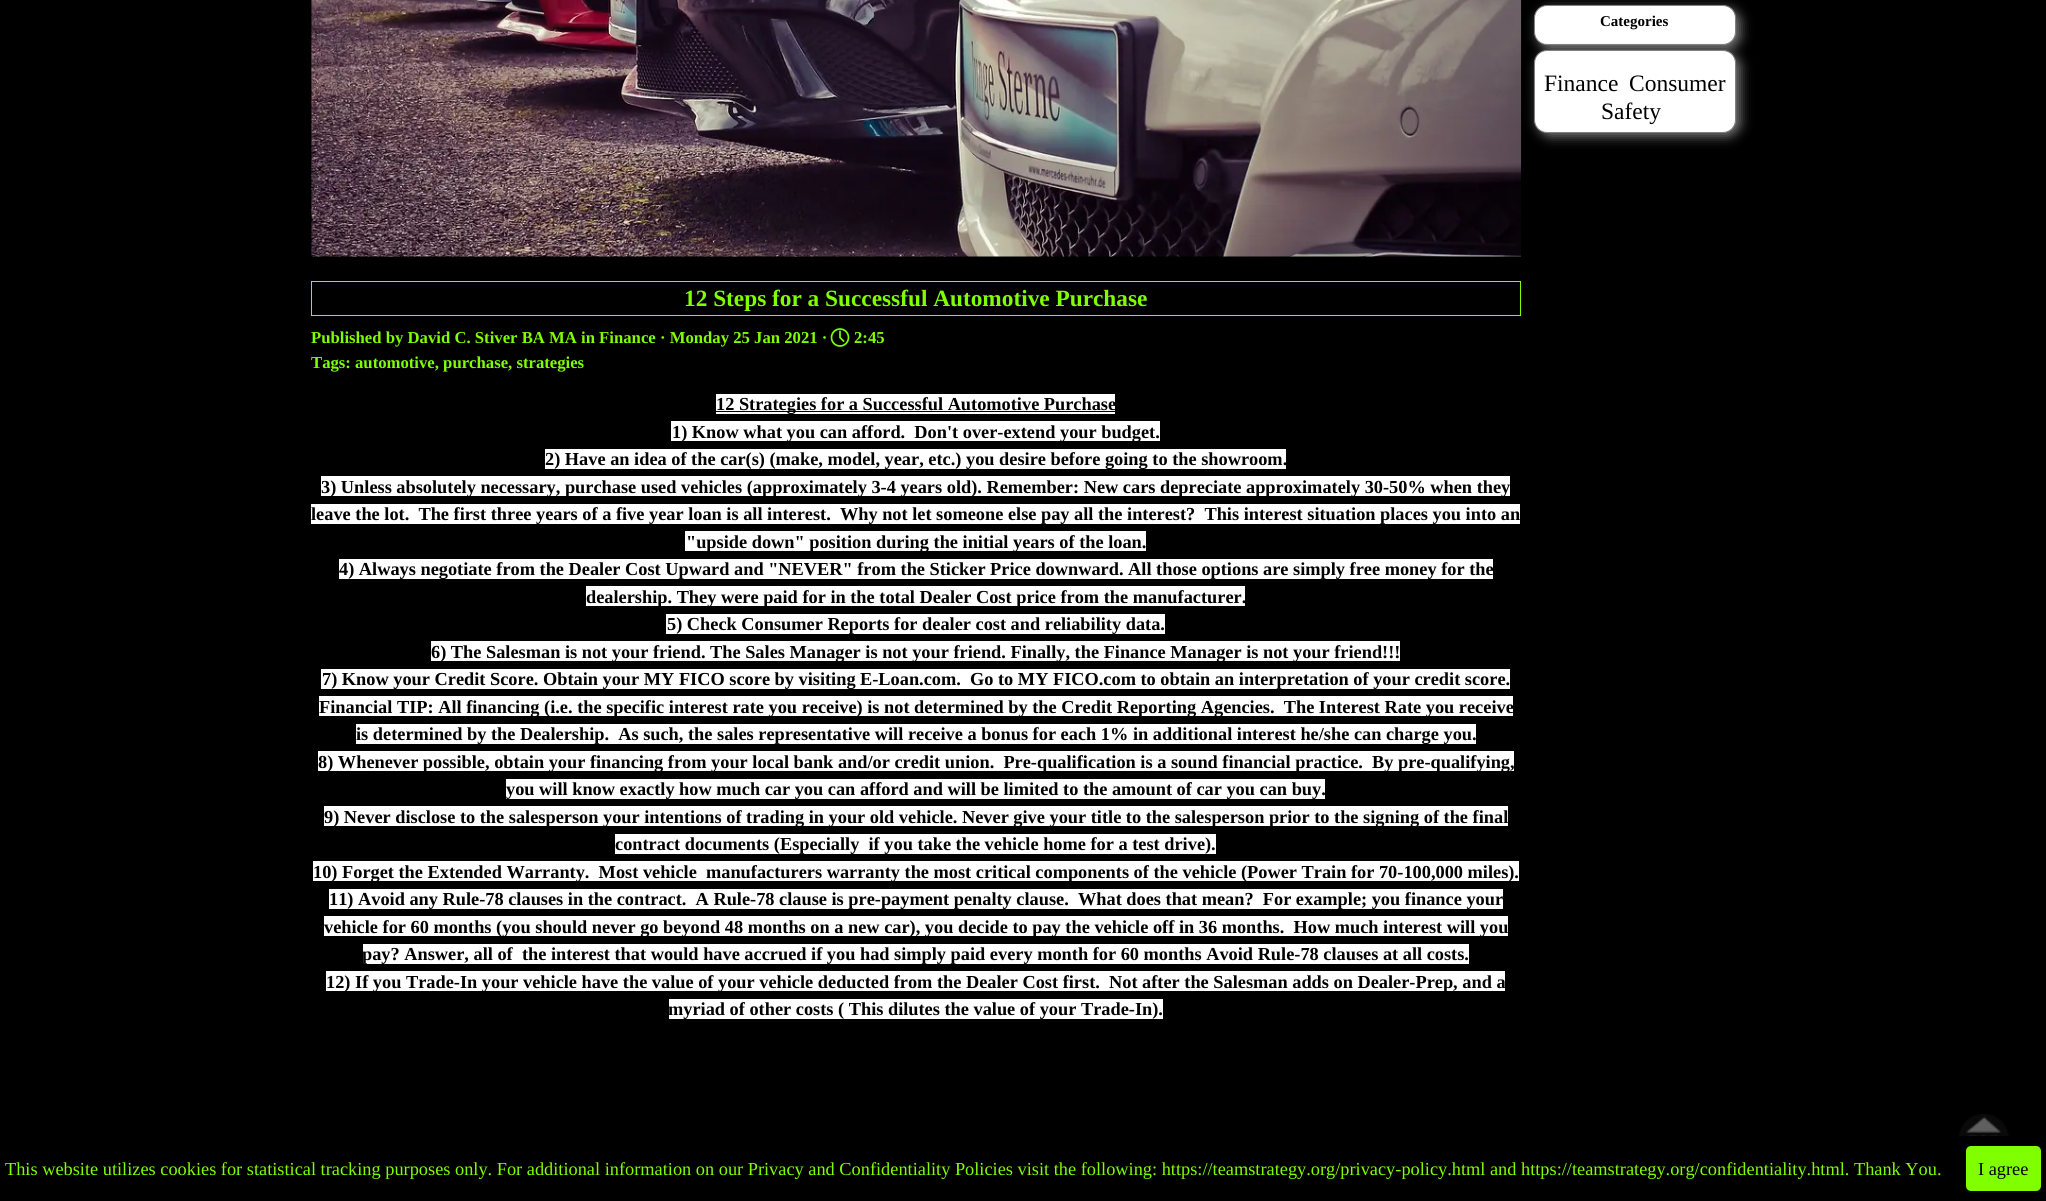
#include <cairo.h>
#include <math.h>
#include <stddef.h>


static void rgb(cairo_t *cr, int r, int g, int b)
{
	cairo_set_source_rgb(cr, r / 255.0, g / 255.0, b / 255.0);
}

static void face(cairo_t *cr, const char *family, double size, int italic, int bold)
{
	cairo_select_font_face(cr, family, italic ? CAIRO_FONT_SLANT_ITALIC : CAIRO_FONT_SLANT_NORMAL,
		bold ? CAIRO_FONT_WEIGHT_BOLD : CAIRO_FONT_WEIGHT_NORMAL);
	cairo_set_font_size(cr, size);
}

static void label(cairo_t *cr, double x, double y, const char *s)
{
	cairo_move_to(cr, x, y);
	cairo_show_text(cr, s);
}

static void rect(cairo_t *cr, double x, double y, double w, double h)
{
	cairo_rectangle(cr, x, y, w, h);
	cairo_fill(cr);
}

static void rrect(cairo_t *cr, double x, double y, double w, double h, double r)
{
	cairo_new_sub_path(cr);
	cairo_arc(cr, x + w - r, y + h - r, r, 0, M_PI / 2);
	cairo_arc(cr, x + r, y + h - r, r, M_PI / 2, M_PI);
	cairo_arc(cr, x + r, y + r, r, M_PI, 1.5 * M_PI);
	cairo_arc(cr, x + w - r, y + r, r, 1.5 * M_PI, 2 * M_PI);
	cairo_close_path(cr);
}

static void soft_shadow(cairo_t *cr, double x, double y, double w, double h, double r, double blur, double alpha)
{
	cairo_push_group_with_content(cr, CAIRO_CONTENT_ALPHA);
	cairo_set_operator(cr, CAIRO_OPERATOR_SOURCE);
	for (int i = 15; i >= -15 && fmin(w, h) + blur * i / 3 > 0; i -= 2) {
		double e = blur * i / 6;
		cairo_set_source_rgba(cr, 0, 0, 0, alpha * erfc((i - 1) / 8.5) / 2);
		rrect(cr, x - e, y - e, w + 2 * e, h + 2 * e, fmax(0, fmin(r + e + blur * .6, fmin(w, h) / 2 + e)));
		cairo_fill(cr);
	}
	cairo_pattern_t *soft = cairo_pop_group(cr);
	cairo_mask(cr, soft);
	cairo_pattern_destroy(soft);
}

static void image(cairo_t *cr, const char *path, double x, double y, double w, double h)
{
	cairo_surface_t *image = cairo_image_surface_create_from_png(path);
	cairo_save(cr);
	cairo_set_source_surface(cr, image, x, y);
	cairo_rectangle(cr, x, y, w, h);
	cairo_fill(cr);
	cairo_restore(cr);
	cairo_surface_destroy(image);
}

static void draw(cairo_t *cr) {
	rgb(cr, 0, 0, 0);
	cairo_paint(cr);
	image(cr, "image0.png", 311, 0, 1211, 257);
	rgb(cr, 128, 128, 128);
	soft_shadow(cr, 1538, 9, 202, 40, 13, 6, 1);
	rgb(cr, 255, 255, 255);
	rrect(cr, 1534.5, 5.5, 201, 39, 12.5);
	cairo_fill_preserve(cr);
	rgb(cr, 128, 128, 128);
	cairo_set_line_width(cr, 1);
	cairo_stroke(cr);
	face(cr, "Liberation Serif", 15, 0, 1);
	rgb(cr, 0, 0, 0);
	label(cr, 1600, 26, "Categories");
	rgb(cr, 128, 128, 128);
	soft_shadow(cr, 1538, 54, 202, 82, 13, 6, 1);
	rgb(cr, 255, 255, 255);
	rrect(cr, 1534.5, 50.5, 201, 82, 12.5);
	cairo_fill_preserve(cr);
	rgb(cr, 128, 128, 128);
	cairo_stroke(cr);
	face(cr, "Liberation Serif", 23.5, 0, 0);
	rgb(cr, 0, 0, 0);
	label(cr, 1544, 91, "Finance");
	label(cr, 1629, 91, "Consumer");
	label(cr, 1601, 119, "Safety");
	cairo_rectangle(cr, 311.5, 281.5, 1209, 34);
	rgb(cr, 128, 255, 0);
	cairo_stroke(cr);
	face(cr, "Liberation Serif", 23.3, 0, 1);
	label(cr, 684, 306, "12 Steps for a Successful Automotive Purchase");
	face(cr, "Liberation Serif", 16.7, 0, 1);
	label(cr, 311, 343, "Published by David C. Stiver BA MA in Finance · Monday 25 Jan 2021 ·");
	label(cr, 854, 343, "2:45");
	cairo_new_path(cr);
	cairo_arc(cr, 840, 337.5, 8.5, 0, 2 * M_PI);
	cairo_set_line_width(cr, 1.7);
	cairo_stroke(cr);
	cairo_new_path(cr);
	cairo_move_to(cr, 840, 331.5);
	cairo_line_to(cr, 840, 337.5);
	cairo_line_to(cr, 843.5, 341);
	cairo_set_line_cap(cr, CAIRO_LINE_CAP_SQUARE);
	cairo_stroke(cr);
	cairo_save(cr);
	cairo_rectangle(cr, 311, 0, 1210, 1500);
	cairo_clip(cr);
	label(cr, 311, 368, "Tags:");
	cairo_restore(cr);
	label(cr, 355, 368, "automotive, purchase, strategies");
	rgb(cr, 255, 255, 255);
	rect(cr, 716, 394, 399, 20);
	rgb(cr, 0, 0, 0);
	rect(cr, 716, 411, 399, 1);
	face(cr, "Liberation Serif", 18.33, 0, 1);
	label(cr, 716, 410, "12 Strategies for a Successful Automotive Purchase");
	rgb(cr, 255, 255, 255);
	rect(cr, 671, 421, 489, 20);
	rgb(cr, 0, 0, 0);
	label(cr, 672, 438, "1) Know what you can afford.  Don't over-extend your budget.");
	rgb(cr, 255, 255, 255);
	rect(cr, 545, 449, 741, 20);
	rgb(cr, 0, 0, 0);
	label(cr, 545, 465, "2) Have an idea of the car(s) (make, model, year, etc.) you desire before going to the showroom.");
	rgb(cr, 255, 255, 255);
	rect(cr, 321, 476, 1189, 20);
	rgb(cr, 0, 0, 0);
	label(cr, 321, 493, "3) Unless absolutely necessary, purchase used vehicles (approximately 3-4 years old). Remember: New cars depreciate approximately 30-50% when they");
	rgb(cr, 255, 255, 255);
	rect(cr, 311, 504, 1209, 20);
	rgb(cr, 0, 0, 0);
	label(cr, 311, 520, "leave the lot.  The first three years of a five year loan is all interest.  Why not let someone else pay all the interest?  This interest situation places you into an");
	rgb(cr, 255, 255, 255);
	rect(cr, 685, 531, 461, 20);
	rgb(cr, 0, 0, 0);
	label(cr, 686, 548, "\"upside down\" position during the initial years of the loan.");
	rgb(cr, 255, 255, 255);
	rect(cr, 339, 559, 1154, 20);
	rgb(cr, 0, 0, 0);
	label(cr, 339, 575, "4) Always negotiate from the Dealer Cost Upward and \"NEVER\" from the Sticker Price downward. All those options are simply free money for the");
	rgb(cr, 255, 255, 255);
	rect(cr, 586, 586, 659, 20);
	rgb(cr, 0, 0, 0);
	label(cr, 586, 603, "dealership. They were paid for in the total Dealer Cost price from the manufacturer.");
	rgb(cr, 255, 255, 255);
	rect(cr, 666, 614, 499, 20);
	rgb(cr, 0, 0, 0);
	label(cr, 667, 630, "5) Check Consumer Reports for dealer cost and reliability data.");
	rgb(cr, 255, 255, 255);
	rect(cr, 431, 641, 969, 20);
	rgb(cr, 0, 0, 0);
	label(cr, 431, 658, "6) The Salesman is not your friend. The Sales Manager is not your friend. Finally, the Finance Manager is not your friend!!!");
	rgb(cr, 255, 255, 255);
	rect(cr, 321, 669, 1189, 20);
	rgb(cr, 0, 0, 0);
	label(cr, 322, 685, "7) Know your Credit Score. Obtain your MY FICO score by visiting");
	label(cr, 860, 685, "E-Loan.com.  Go to MY FICO.com to obtain an interpretation of your credit score.");
	rgb(cr, 255, 255, 255);
	rect(cr, 319, 696, 1194, 20);
	rgb(cr, 0, 0, 0);
	label(cr, 319, 713, "Financial TIP: All financing (i.e. the specific interest rate you receive) is not determined by the Credit Reporting Agencies.  The Interest Rate you receive");
	rgb(cr, 255, 255, 255);
	rect(cr, 356, 724, 1120, 20);
	rgb(cr, 0, 0, 0);
	label(cr, 356, 740, "is determined by the Dealership.  As such, the sales representative will receive a bonus for each 1% in additional interest he/she can charge you.");
	rgb(cr, 255, 255, 255);
	rect(cr, 318, 751, 1196, 20);
	rgb(cr, 0, 0, 0);
	label(cr, 318, 768, "8) Whenever possible, obtain your financing from your local bank and/or credit union.  Pre-qualification is a sound financial practice.  By pre-qualifying,");
	rgb(cr, 255, 255, 255);
	rect(cr, 506, 779, 819, 20);
	rgb(cr, 0, 0, 0);
	label(cr, 506, 795, "you will know exactly how much car you can afford and will be limited to the amount of car you can buy.");
	rgb(cr, 255, 255, 255);
	rect(cr, 324, 806, 1184, 20);
	rgb(cr, 0, 0, 0);
	label(cr, 324, 823, "9) Never disclose to the salesperson your intentions of trading in your old vehicle. Never give your title to the salesperson prior to the signing of the final");
	rgb(cr, 255, 255, 255);
	rect(cr, 615, 834, 601, 20);
	rgb(cr, 0, 0, 0);
	label(cr, 615, 850, "contract documents (Especially  if you take the vehicle home for a test drive).");
	rgb(cr, 255, 255, 255);
	rect(cr, 313, 861, 1206, 20);
	rgb(cr, 0, 0, 0);
	label(cr, 313, 878, "10) Forget the Extended Warranty.  Most vehicle  manufacturers warranty the most critical components of the vehicle (Power Train for 70-100,000 miles).");
	rgb(cr, 255, 255, 255);
	rect(cr, 329, 889, 1174, 20);
	rgb(cr, 0, 0, 0);
	label(cr, 329, 905, "11) Avoid any Rule-78 clauses in the contract.  A Rule-78 clause is pre-payment penalty clause.  What does that mean?  For example; you finance your");
	rgb(cr, 255, 255, 255);
	rect(cr, 324, 916, 1184, 20);
	rgb(cr, 0, 0, 0);
	label(cr, 324, 933, "vehicle for 60 months (you should never go beyond 48 months on a new car), you decide to pay the vehicle off in 36 months.  How much interest will you");
	rgb(cr, 255, 255, 255);
	rect(cr, 363, 944, 1106, 20);
	rgb(cr, 0, 0, 0);
	label(cr, 362, 960, "pay? Answer, all of  the interest that would have accrued if you had simply paid every month for 60 months Avoid Rule-78 clauses at all costs.");
	rgb(cr, 255, 255, 255);
	rect(cr, 326, 971, 1179, 20);
	rgb(cr, 0, 0, 0);
	label(cr, 326, 988, "12) If you Trade-In your vehicle have the value of your vehicle deducted from the Dealer Cost first.  Not after the Salesman adds on Dealer-Prep, and a");
	rgb(cr, 255, 255, 255);
	rect(cr, 669, 999, 494, 20);
	rgb(cr, 0, 0, 0);
	label(cr, 668, 1015, "myriad of other costs ( This dilutes the value of your Trade-In).");
	image(cr, "image1.png", 1959, 1114, 50, 22);
	face(cr, "Liberation Serif", 18.33, 0, 0);
	rgb(cr, 128, 255, 0);
	label(cr, 5, 1175, "This website utilizes cookies for statistical tracking purposes only. For additional information on our Privacy and Confidentiality Policies visit the following: https://teamstrategy.org/privacy-policy.html and https://teamstrategy.org/confidentiality.html. Thank You.");
	rrect(cr, 1966, 1146, 75, 45, 5);
	cairo_fill(cr);
	rgb(cr, 0, 0, 0);
	label(cr, 1978, 1175, "I agree");
}

int main(void) {
	cairo_surface_t *surface = cairo_image_surface_create(CAIRO_FORMAT_RGB24, 2046, 1201);
	cairo_t *cr = cairo_create(surface);
	cairo_font_options_t *options = cairo_font_options_create();
	cairo_font_options_set_hint_metrics(options, CAIRO_HINT_METRICS_OFF);
	cairo_font_options_set_hint_style(options, CAIRO_HINT_STYLE_NONE);
	cairo_set_font_options(cr, options);
	cairo_set_miter_limit(cr, 4);
	draw(cr);
	cairo_surface_write_to_png(surface, "render.png");
	cairo_font_options_destroy(options);
	cairo_destroy(cr);
	cairo_surface_destroy(surface);
	return 0;
}
